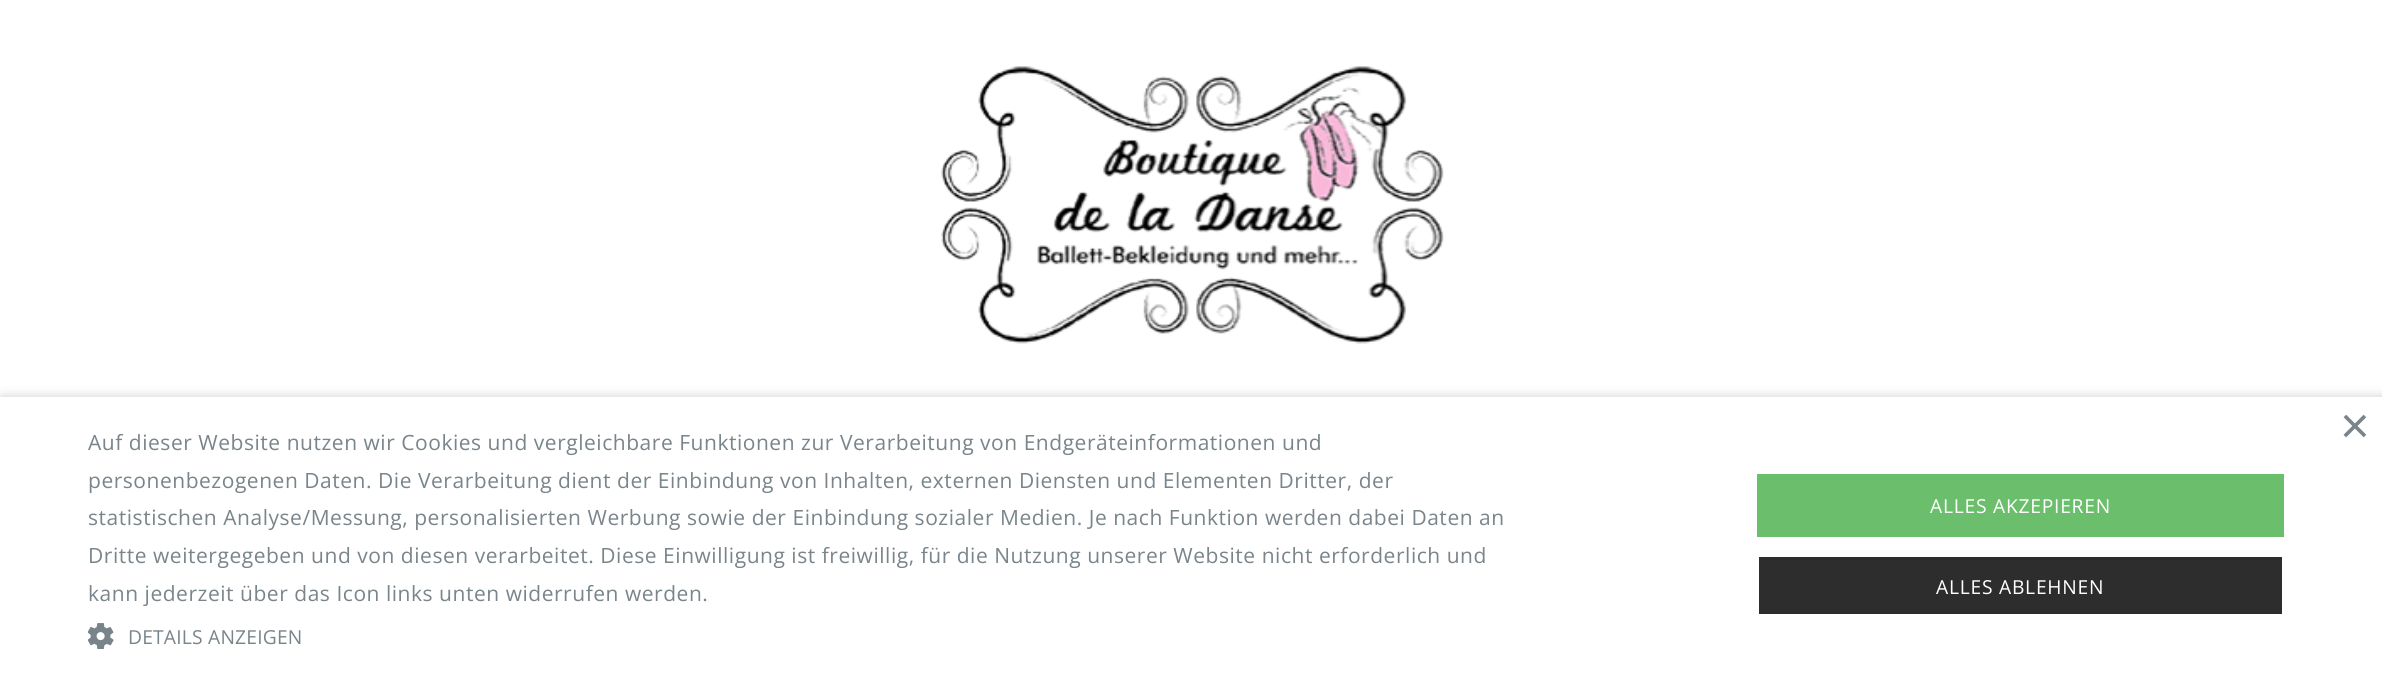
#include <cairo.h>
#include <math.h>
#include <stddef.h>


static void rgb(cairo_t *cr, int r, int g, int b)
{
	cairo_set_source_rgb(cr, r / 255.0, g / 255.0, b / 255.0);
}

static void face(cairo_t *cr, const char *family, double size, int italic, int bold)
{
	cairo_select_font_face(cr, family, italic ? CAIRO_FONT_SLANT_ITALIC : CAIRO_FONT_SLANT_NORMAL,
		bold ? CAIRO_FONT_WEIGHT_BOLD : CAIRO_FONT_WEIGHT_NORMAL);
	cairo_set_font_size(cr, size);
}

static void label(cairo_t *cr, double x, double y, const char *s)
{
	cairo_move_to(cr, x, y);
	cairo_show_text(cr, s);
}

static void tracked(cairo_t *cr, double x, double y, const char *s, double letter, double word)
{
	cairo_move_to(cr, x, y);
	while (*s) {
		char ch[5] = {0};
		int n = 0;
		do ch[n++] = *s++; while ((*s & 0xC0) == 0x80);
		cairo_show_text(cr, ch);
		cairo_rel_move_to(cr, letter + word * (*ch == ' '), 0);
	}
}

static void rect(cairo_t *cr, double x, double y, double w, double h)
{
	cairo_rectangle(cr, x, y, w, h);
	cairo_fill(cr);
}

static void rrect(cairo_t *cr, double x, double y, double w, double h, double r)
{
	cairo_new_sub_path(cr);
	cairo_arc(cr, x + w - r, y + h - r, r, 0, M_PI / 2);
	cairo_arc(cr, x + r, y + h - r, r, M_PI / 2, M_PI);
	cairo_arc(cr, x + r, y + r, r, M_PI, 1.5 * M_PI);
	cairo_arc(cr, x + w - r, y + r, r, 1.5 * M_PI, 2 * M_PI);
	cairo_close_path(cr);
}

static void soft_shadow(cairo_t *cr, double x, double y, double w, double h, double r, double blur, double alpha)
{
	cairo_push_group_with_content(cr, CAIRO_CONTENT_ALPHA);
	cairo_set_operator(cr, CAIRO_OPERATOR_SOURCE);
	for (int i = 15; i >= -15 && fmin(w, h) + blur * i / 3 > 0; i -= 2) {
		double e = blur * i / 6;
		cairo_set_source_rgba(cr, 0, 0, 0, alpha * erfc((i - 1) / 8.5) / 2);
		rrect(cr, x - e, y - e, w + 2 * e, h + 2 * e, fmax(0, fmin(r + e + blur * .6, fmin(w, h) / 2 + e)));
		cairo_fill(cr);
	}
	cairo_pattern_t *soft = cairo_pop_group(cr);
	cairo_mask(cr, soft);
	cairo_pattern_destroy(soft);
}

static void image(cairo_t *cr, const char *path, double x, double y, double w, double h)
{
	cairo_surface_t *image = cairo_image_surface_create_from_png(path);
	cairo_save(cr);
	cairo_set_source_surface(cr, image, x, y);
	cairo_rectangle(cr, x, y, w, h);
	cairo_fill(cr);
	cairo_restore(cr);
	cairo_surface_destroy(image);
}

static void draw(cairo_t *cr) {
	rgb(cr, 255, 255, 255);
	cairo_paint(cr);
	image(cr, "image0.png", 941, 66, 503, 278);
	rgb(cr, 0, 0, 0);
	soft_shadow(cr, 2, 401, 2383, 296, 0, 7, 0.35);
	rgb(cr, 255, 255, 255);
	rect(cr, 0, 397, 2382, 296);
	face(cr, "Liberation Sans", 51, 0, 0);
	rgb(cr, 121, 133, 138);
	label(cr, 2340, 443, "×");
	face(cr, "Open Sans", 21, 0, 0);
	tracked(cr, 88, 450, "Auf dieser Website nutzen wir Cookies und vergleichbare Funktionen zur Verarbeitung von Endgeräteinformationen und", 0.53, 0);
	tracked(cr, 88, 488, "personenbezogenen Daten. Die Verarbeitung dient der Einbindung von Inhalten, externen Diensten und Elementen Dritter, der", 0.53, 0);
	tracked(cr, 88, 525, "statistischen Analyse/Messung, personalisierten Werbung sowie der Einbindung sozialer Medien. Je nach Funktion werden dabei Daten an", 0.53, 0);
	tracked(cr, 88, 563, "Dritte weitergegeben und von diesen verarbeitet. Diese Einwilligung ist freiwillig, für die Nutzung unserer Website nicht erforderlich und", 0.53, 0);
	tracked(cr, 88, 601, "kann jederzeit über das Icon links unten widerrufen werden.", 0.53, 0);
	image(cr, "image1.png", 88, 623, 26, 26);
	face(cr, "Open Sans", 19.25, 0, 0);
	tracked(cr, 128, 644, "DETAILS ANZEIGEN", 0.2, 0);
	rgb(cr, 107, 190, 107);
	rect(cr, 1757, 474, 527, 63);
	rgb(cr, 255, 255, 255);
	tracked(cr, 1930, 513, "ALLES AKZEPIEREN", 0.75, 0);
	rgb(cr, 45, 45, 45);
	rect(cr, 1759, 557, 523, 57);
	rgb(cr, 255, 255, 255);
	tracked(cr, 1936, 594, "ALLES ABLEHNEN", 0.75, 0);
}

int main(void) {
	cairo_surface_t *surface = cairo_image_surface_create(CAIRO_FORMAT_RGB24, 2382, 693);
	cairo_t *cr = cairo_create(surface);
	cairo_font_options_t *options = cairo_font_options_create();
	cairo_font_options_set_hint_metrics(options, CAIRO_HINT_METRICS_OFF);
	cairo_font_options_set_hint_style(options, CAIRO_HINT_STYLE_NONE);
	cairo_set_font_options(cr, options);
	cairo_set_miter_limit(cr, 4);
	draw(cr);
	cairo_surface_write_to_png(surface, "render.png");
	cairo_font_options_destroy(options);
	cairo_destroy(cr);
	cairo_surface_destroy(surface);
	return 0;
}
